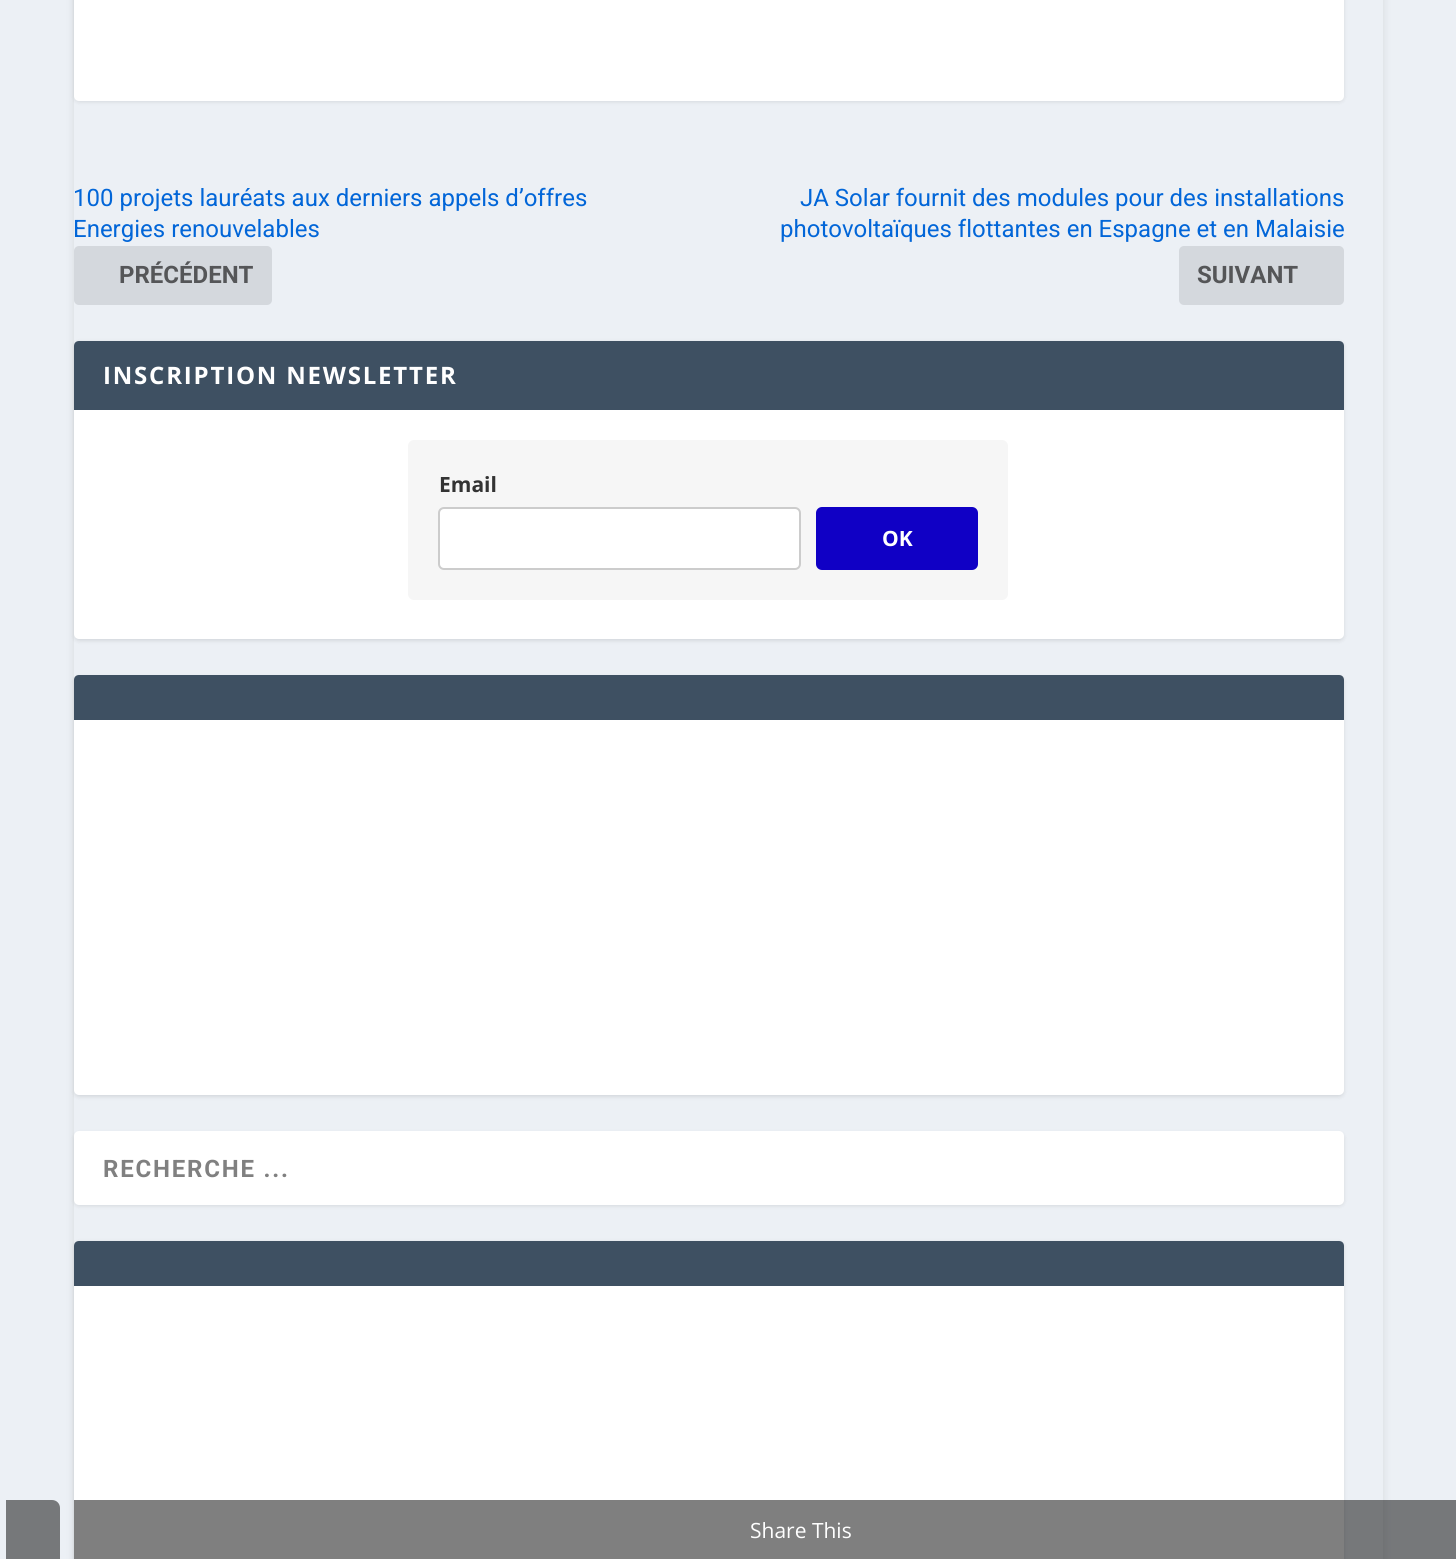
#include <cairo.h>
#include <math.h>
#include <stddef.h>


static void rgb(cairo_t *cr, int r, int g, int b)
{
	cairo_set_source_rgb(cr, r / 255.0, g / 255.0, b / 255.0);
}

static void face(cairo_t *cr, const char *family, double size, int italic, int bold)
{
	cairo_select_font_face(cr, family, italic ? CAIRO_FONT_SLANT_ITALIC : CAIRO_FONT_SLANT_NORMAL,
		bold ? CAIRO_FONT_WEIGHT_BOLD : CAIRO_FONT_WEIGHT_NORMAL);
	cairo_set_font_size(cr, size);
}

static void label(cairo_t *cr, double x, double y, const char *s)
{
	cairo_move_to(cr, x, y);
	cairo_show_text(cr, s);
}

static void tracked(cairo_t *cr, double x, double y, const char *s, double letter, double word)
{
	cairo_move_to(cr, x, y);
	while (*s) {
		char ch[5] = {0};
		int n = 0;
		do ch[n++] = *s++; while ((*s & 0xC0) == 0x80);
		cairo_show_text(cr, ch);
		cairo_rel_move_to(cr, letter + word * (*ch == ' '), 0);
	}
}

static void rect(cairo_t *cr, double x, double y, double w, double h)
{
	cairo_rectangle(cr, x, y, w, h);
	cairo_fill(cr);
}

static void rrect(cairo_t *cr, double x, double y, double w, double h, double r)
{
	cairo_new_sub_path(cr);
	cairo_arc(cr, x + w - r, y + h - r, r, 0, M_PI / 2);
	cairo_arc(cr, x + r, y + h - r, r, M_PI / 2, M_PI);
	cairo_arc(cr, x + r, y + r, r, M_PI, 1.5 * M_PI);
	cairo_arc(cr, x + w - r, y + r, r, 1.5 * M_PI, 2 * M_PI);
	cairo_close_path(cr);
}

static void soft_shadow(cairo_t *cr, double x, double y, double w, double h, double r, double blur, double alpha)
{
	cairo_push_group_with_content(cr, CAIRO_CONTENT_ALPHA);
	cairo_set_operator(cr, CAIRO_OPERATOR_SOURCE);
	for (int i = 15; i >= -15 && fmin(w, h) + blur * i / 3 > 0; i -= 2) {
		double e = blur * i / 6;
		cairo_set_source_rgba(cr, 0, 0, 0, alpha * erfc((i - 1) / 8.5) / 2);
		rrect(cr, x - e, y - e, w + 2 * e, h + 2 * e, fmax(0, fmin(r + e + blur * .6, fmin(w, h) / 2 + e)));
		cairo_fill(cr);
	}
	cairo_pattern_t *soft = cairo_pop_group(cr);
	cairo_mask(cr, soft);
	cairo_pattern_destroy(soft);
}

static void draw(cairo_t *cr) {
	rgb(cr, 236, 240, 245);
	cairo_paint(cr);
	cairo_save(cr);
	cairo_set_fill_rule(cr, CAIRO_FILL_RULE_EVEN_ODD);
	cairo_new_path(cr);
	cairo_move_to(cr, 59, 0);
	cairo_line_to(cr, 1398, 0);
	cairo_line_to(cr, 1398, 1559);
	cairo_line_to(cr, 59, 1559);
	cairo_close_path(cr);
	cairo_move_to(cr, 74, -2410);
	cairo_line_to(cr, 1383, -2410);
	cairo_line_to(cr, 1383, 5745);
	cairo_line_to(cr, 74, 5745);
	cairo_close_path(cr);
	cairo_clip(cr);
	rgb(cr, 0, 0, 0);
	soft_shadow(cr, 74, -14, 1309, 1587, 0, 4.5, 0.1);
	cairo_restore(cr);
	rgb(cr, 0, 0, 0);
	soft_shadow(cr, 74, -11, 1270, 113, 5, 2, 0.1);
	rgb(cr, 255, 255, 255);
	rrect(cr, 74, -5, 1270, 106, 5);
	cairo_fill(cr);
	face(cr, "Roboto", 24, 0, 0);
	rgb(cr, 2, 102, 216);
	label(cr, 73, 206, "100 projets lauréats aux derniers appels d’offres");
	label(cr, 73, 237, "Energies renouvelables");
	rgb(cr, 212, 216, 221);
	rrect(cr, 74, 246, 198, 59, 5);
	cairo_fill(cr);
	face(cr, "Roboto", 24, 0, 1);
	rgb(cr, 85, 86, 88);
	label(cr, 119, 283, "PRÉCÉDENT");
	face(cr, "Roboto", 24, 0, 0);
	rgb(cr, 2, 102, 216);
	label(cr, 800, 206, "JA Solar fournit des modules pour des installations");
	label(cr, 780, 237, "photovoltaïques flottantes en Espagne et en Malaisie");
	rgb(cr, 212, 216, 221);
	rrect(cr, 1179, 246, 165, 59, 5);
	cairo_fill(cr);
	face(cr, "Roboto", 24, 0, 1);
	rgb(cr, 85, 86, 88);
	label(cr, 1197, 283, "SUIVANT");
	rgb(cr, 0, 0, 0);
	soft_shadow(cr, 74, 342, 1270, 299, 5, 2, 0.1);
	rgb(cr, 255, 255, 255);
	rrect(cr, 74, 341, 1270, 298, 5);
	cairo_fill(cr);
	rgb(cr, 62, 80, 98);
	cairo_new_path(cr);
	cairo_move_to(cr, 79, 341);
	cairo_line_to(cr, 1339, 341);
	cairo_curve_to(cr, 1342, 341, 1344, 343, 1344, 346);
	cairo_line_to(cr, 1344, 410);
	cairo_line_to(cr, 74, 410);
	cairo_line_to(cr, 74, 346);
	cairo_curve_to(cr, 74, 343, 76, 341, 79, 341);
	cairo_close_path(cr);
	cairo_fill(cr);
	face(cr, "Open Sans", 24, 0, 1);
	rgb(cr, 255, 255, 255);
	tracked(cr, 103, 384, "INSCRIPTION NEWSLETTER", 1.8, 0);
	rgb(cr, 246, 246, 246);
	rrect(cr, 408, 440, 600, 160, 6);
	cairo_fill(cr);
	face(cr, "Open Sans", 21, 0, 1);
	rgb(cr, 51, 51, 51);
	label(cr, 439, 492, "Email");
	rgb(cr, 255, 255, 255);
	rrect(cr, 439, 508, 361, 61, 5);
	cairo_fill_preserve(cr);
	rgb(cr, 204, 204, 204);
	cairo_stroke(cr);
	rgb(cr, 16, 0, 197);
	rrect(cr, 817, 508, 160, 61, 5);
	cairo_fill_preserve(cr);
	cairo_stroke(cr);
	rgb(cr, 255, 255, 255);
	label(cr, 882, 546, "OK");
	rgb(cr, 0, 0, 0);
	soft_shadow(cr, 74, 677, 1270, 420, 5, 2, 0.1);
	rgb(cr, 255, 255, 255);
	rrect(cr, 74, 675, 1270, 420, 5);
	cairo_fill(cr);
	rgb(cr, 62, 80, 98);
	cairo_new_path(cr);
	cairo_move_to(cr, 79, 675);
	cairo_line_to(cr, 1339, 675);
	cairo_curve_to(cr, 1342, 675, 1344, 677, 1344, 680);
	cairo_line_to(cr, 1344, 720);
	cairo_line_to(cr, 74, 720);
	cairo_line_to(cr, 74, 680);
	cairo_curve_to(cr, 74, 677, 76, 675, 79, 675);
	cairo_close_path(cr);
	cairo_fill(cr);
	rgb(cr, 0, 0, 0);
	soft_shadow(cr, 74, 1133, 1270, 73, 5, 2, 0.1);
	rgb(cr, 255, 255, 255);
	rrect(cr, 74, 1131, 1270, 74, 5);
	cairo_fill(cr);
	face(cr, "Roboto", 24, 0, 1);
	rgb(cr, 128, 128, 128);
	tracked(cr, 103, 1177, "RECHERCHE ...", 1.8, 0);
	rgb(cr, 0, 0, 0);
	soft_shadow(cr, 74, 1242, 1270, 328, 5, 2, 0.1);
	rgb(cr, 255, 255, 255);
	rrect(cr, 74, 1241, 1270, 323, 5);
	cairo_fill(cr);
	rgb(cr, 62, 80, 98);
	cairo_new_path(cr);
	cairo_move_to(cr, 79, 1241);
	cairo_line_to(cr, 1339, 1241);
	cairo_curve_to(cr, 1342, 1241, 1344, 1243, 1344, 1246);
	cairo_line_to(cr, 1344, 1286);
	cairo_line_to(cr, 74, 1286);
	cairo_line_to(cr, 74, 1246);
	cairo_curve_to(cr, 74, 1243, 76, 1241, 79, 1241);
	cairo_close_path(cr);
	cairo_fill(cr);
	rgb(cr, 118, 120, 122);
	cairo_new_path(cr);
	cairo_move_to(cr, 6, 1500);
	cairo_line_to(cr, 52, 1500);
	cairo_curve_to(cr, 56.5, 1500, 60, 1503.5, 60, 1508);
	cairo_line_to(cr, 60, 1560);
	cairo_line_to(cr, 6, 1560);
	cairo_close_path(cr);
	cairo_fill(cr);
	cairo_set_source_rgba(cr, 0, 0, 0, 0.5);
	rect(cr, 74, 1500, 1382, 59);
	face(cr, "Open Sans", 21, 0, 0);
	rgb(cr, 255, 255, 255);
	label(cr, 750, 1538, "Share This");
}

int main(void) {
	cairo_surface_t *surface = cairo_image_surface_create(CAIRO_FORMAT_RGB24, 1456, 1559);
	cairo_t *cr = cairo_create(surface);
	cairo_font_options_t *options = cairo_font_options_create();
	cairo_font_options_set_hint_metrics(options, CAIRO_HINT_METRICS_OFF);
	cairo_font_options_set_hint_style(options, CAIRO_HINT_STYLE_NONE);
	cairo_set_font_options(cr, options);
	cairo_set_miter_limit(cr, 4);
	draw(cr);
	cairo_surface_write_to_png(surface, "render.png");
	cairo_font_options_destroy(options);
	cairo_destroy(cr);
	cairo_surface_destroy(surface);
	return 0;
}
